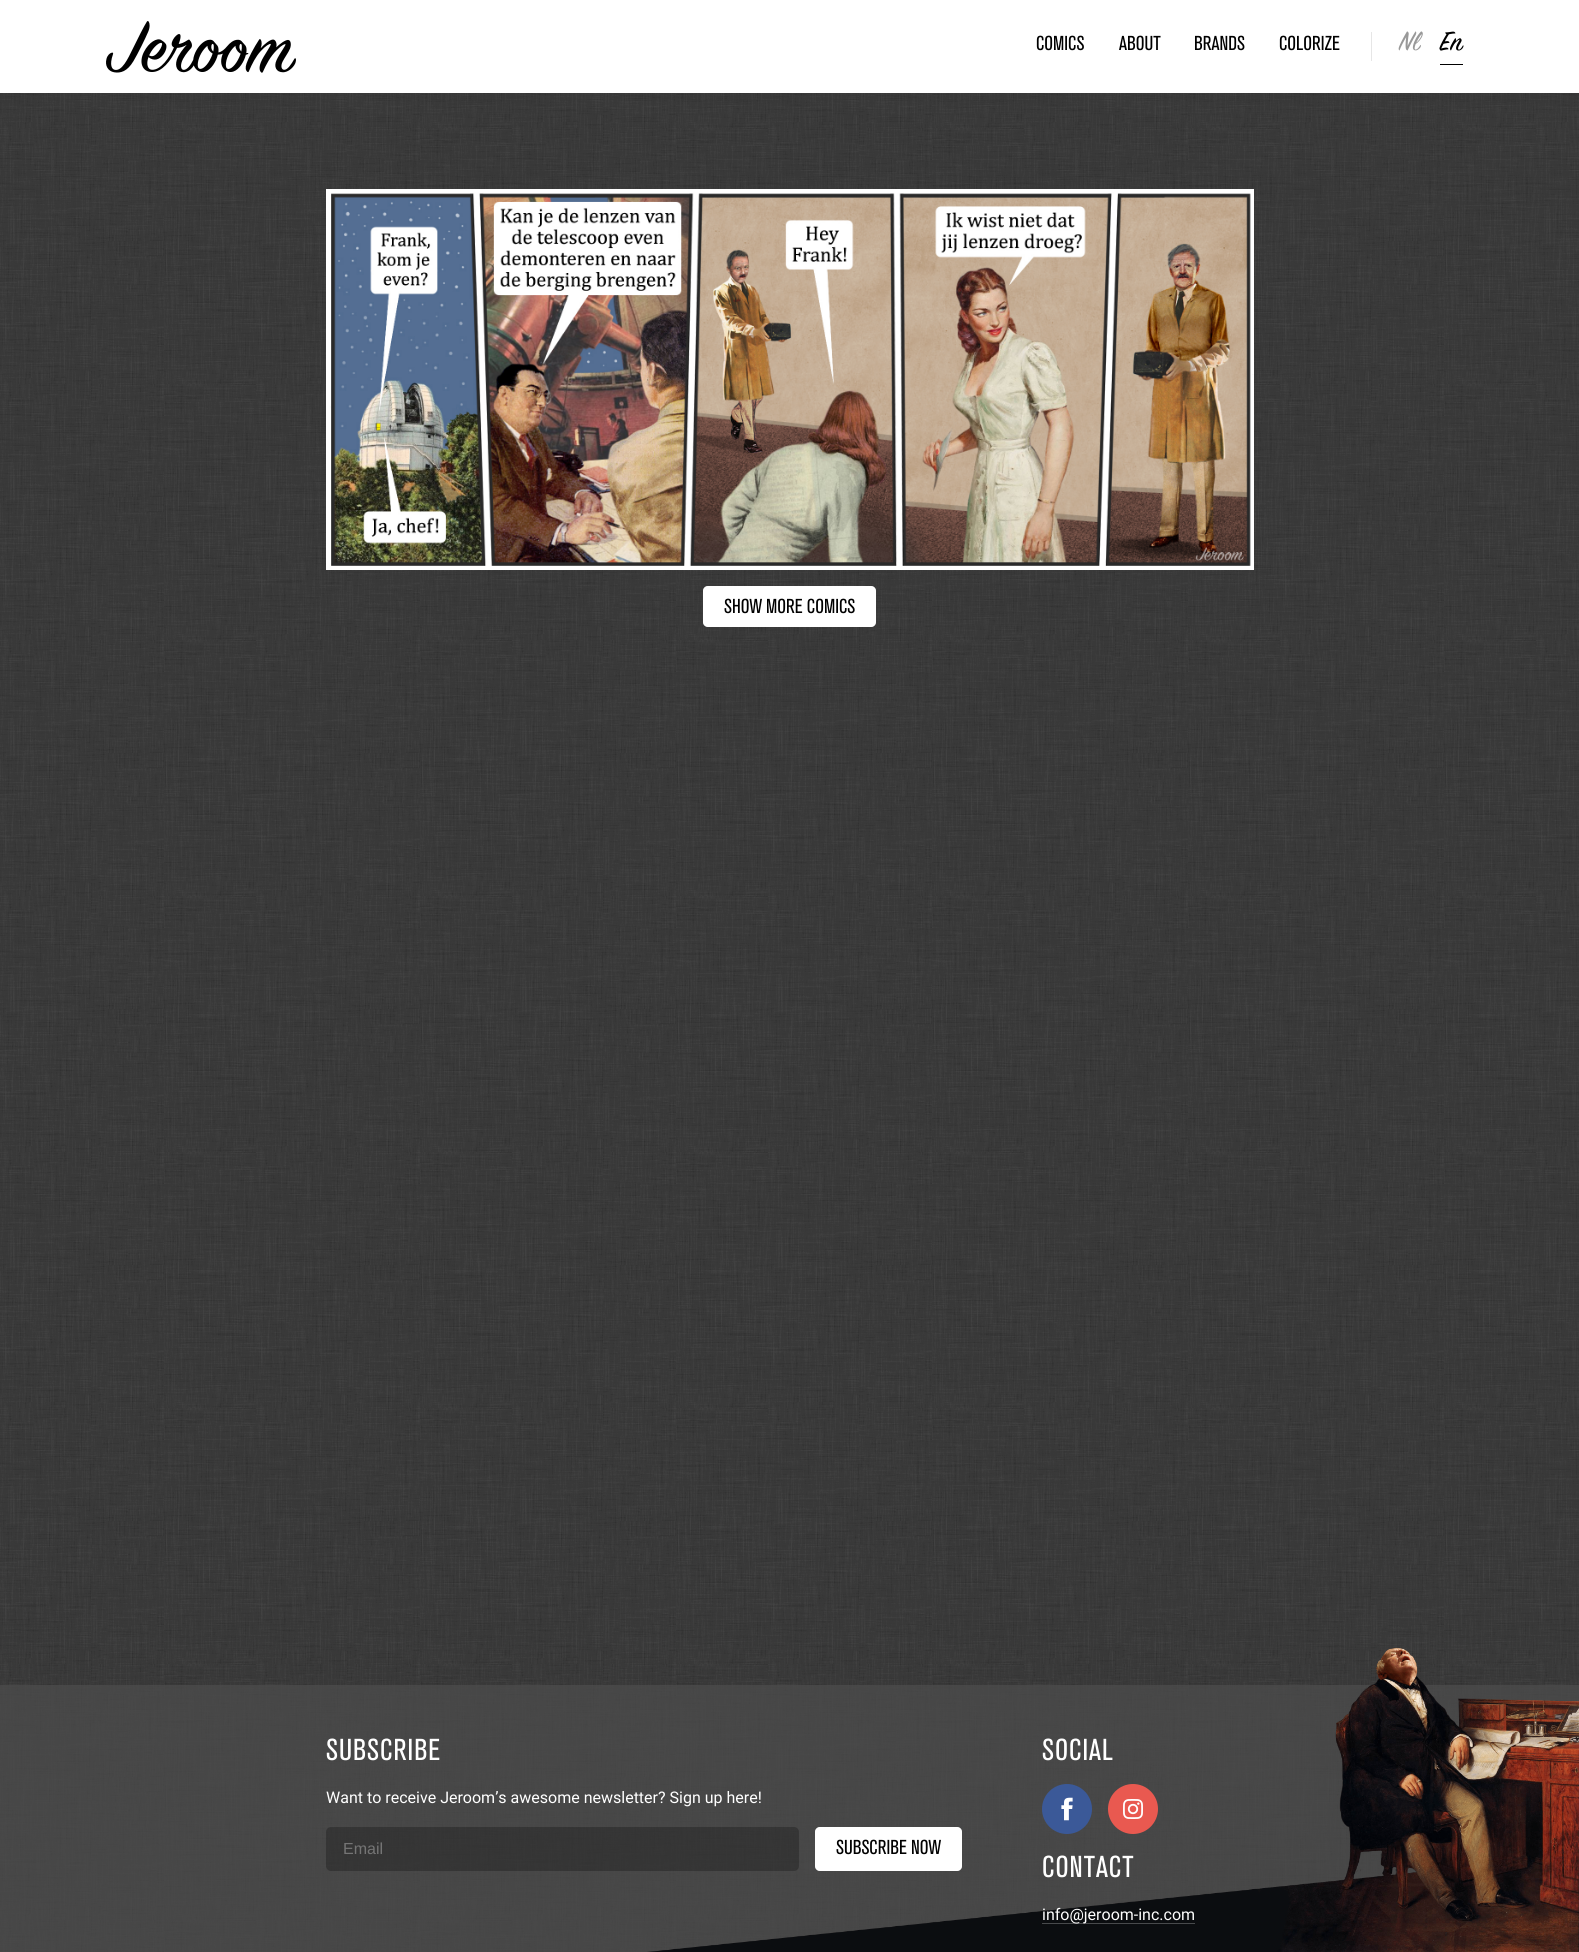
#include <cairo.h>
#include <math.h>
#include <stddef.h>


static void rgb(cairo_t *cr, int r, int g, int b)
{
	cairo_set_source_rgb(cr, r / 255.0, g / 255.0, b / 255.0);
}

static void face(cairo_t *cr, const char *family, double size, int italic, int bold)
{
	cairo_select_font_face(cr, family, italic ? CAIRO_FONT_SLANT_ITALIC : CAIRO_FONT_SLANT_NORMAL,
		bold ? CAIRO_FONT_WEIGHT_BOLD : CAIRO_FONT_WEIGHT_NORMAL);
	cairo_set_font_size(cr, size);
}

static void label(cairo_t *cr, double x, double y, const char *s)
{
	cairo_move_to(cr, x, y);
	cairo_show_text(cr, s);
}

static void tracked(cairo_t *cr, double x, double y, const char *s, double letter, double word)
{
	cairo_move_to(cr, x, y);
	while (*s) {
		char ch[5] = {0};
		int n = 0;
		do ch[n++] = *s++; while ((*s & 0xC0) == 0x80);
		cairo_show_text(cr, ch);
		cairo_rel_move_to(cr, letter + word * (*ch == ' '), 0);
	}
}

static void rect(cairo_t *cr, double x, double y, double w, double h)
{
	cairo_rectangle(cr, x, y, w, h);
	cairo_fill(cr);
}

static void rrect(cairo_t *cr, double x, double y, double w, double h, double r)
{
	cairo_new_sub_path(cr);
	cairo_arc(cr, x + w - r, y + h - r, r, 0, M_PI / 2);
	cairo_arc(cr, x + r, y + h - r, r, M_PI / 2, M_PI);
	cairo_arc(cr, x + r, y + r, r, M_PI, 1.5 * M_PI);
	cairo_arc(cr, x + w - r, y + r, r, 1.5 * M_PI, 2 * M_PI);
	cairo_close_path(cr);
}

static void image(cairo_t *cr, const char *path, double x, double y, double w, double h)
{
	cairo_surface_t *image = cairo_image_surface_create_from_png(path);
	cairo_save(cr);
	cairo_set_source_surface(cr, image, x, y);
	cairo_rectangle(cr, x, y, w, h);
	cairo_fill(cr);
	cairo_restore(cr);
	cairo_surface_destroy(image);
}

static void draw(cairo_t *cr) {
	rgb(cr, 255, 255, 255);
	cairo_paint(cr);
	image(cr, "image0.png", 0, 93, 1579, 1859);
	image(cr, "image1.png", 106, 21, 190, 52);
	rgb(cr, 230, 230, 230);
	rect(cr, 1371, 32, 1, 29);
	face(cr, "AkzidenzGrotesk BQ", 20, 0, 0);
	rgb(cr, 0, 0, 0);
	label(cr, 1036, 50, "COMICS");
	label(cr, 1119, 50, "ABOUT");
	label(cr, 1194, 50, "BRANDS");
	label(cr, 1279, 50, "COLORIZE");
	face(cr, "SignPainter", 30, 0, 0);
	rgb(cr, 153, 153, 153);
	label(cr, 1399, 50, "Nl");
	rgb(cr, 0, 0, 0);
	rect(cr, 1440, 64, 23, 1);
	label(cr, 1440, 50, "En");
	image(cr, "image2.png", 326, 189, 928, 381);
	rgb(cr, 255, 255, 255);
	rrect(cr, 703, 586, 173, 41, 5);
	cairo_fill(cr);
	rrect(cr, 703.5, 586.5, 172, 40, 4.5);
	cairo_set_source_rgba(cr, 1, 1, 1, 0.5);
	cairo_set_line_width(cr, 1);
	cairo_stroke(cr);
	face(cr, "AkzidenzGrotesk BQ", 20, 0, 0);
	rgb(cr, 0, 0, 0);
	label(cr, 724, 613, "SHOW MORE COMICS");
	cairo_set_source_rgba(cr, 0.302, 0.302, 0.302, 0.7);
	rect(cr, 0, 1685, 1579, 267);
	image(cr, "image3.png", 647, 1647, 932, 305);
	face(cr, "AkzidenzGrotesk BQ", 30, 0, 0);
	rgb(cr, 255, 255, 255);
	tracked(cr, 326, 1760, "SUBSCRIBE", 1, 0);
	face(cr, "Roboto", 16, 0, 0);
	label(cr, 326, 1803, "Want to receive Jeroom’s awesome newsletter? Sign up here!");
	cairo_set_source_rgba(cr, 0, 0, 0, 0.25);
	rrect(cr, 326, 1827, 473, 44, 5);
	cairo_fill(cr);
	face(cr, "Liberation Sans", 16, 0, 0);
	rgb(cr, 117, 117, 117);
	label(cr, 343, 1854, "Email");
	rgb(cr, 255, 255, 255);
	rrect(cr, 815, 1827, 147, 44, 5);
	cairo_fill(cr);
	rrect(cr, 815.5, 1827.5, 146, 43, 4.5);
	cairo_set_source_rgba(cr, 1, 1, 1, 0.5);
	cairo_stroke(cr);
	face(cr, "AkzidenzGrotesk BQ", 20, 0, 0);
	rgb(cr, 0, 0, 0);
	label(cr, 836, 1854, "SUBSCRIBE NOW");
	face(cr, "AkzidenzGrotesk BQ", 30, 0, 0);
	rgb(cr, 255, 255, 255);
	tracked(cr, 1042, 1760, "SOCIAL", 1, 0);
	rgb(cr, 59, 89, 152);
	cairo_new_path(cr);
	cairo_arc(cr, 1067, 1809, 25, 0, 2 * M_PI);
	cairo_fill(cr);
	image(cr, "image4.png", 1061, 1797, 12, 24);
	rgb(cr, 233, 89, 80);
	cairo_arc(cr, 1133, 1809, 25, 0, 2 * M_PI);
	cairo_fill(cr);
	image(cr, "image5.png", 1123, 1799, 20, 20);
	rgb(cr, 255, 255, 255);
	tracked(cr, 1042, 1877, "CONTACT", 1, 0);
	face(cr, "Roboto", 16, 0, 0);
	label(cr, 1042, 1920, "info@jeroom-inc.com");
	cairo_set_source_rgba(cr, 1, 1, 1, 0.25);
	rect(cr, 1042, 1923, 153, 1);
}

int main(void) {
	cairo_surface_t *surface = cairo_image_surface_create(CAIRO_FORMAT_RGB24, 1579, 1952);
	cairo_t *cr = cairo_create(surface);
	cairo_font_options_t *options = cairo_font_options_create();
	cairo_font_options_set_hint_metrics(options, CAIRO_HINT_METRICS_OFF);
	cairo_font_options_set_hint_style(options, CAIRO_HINT_STYLE_NONE);
	cairo_set_font_options(cr, options);
	cairo_set_miter_limit(cr, 4);
	draw(cr);
	cairo_surface_write_to_png(surface, "render.png");
	cairo_font_options_destroy(options);
	cairo_destroy(cr);
	cairo_surface_destroy(surface);
	return 0;
}
